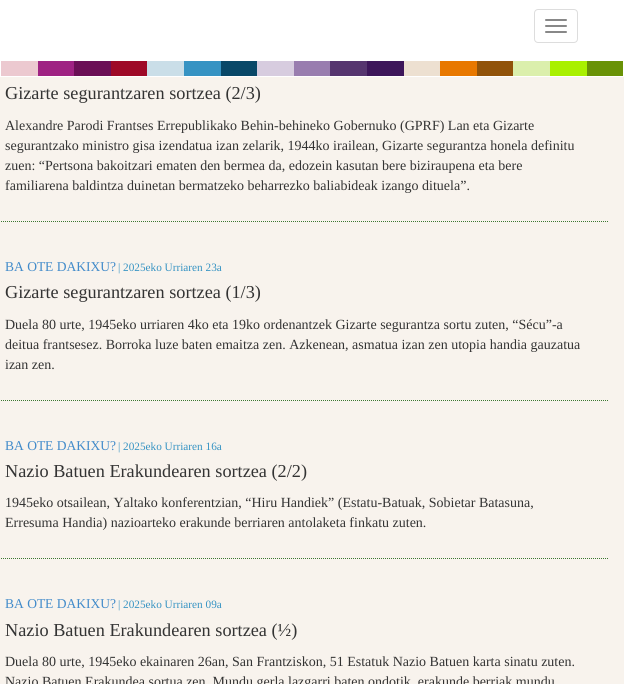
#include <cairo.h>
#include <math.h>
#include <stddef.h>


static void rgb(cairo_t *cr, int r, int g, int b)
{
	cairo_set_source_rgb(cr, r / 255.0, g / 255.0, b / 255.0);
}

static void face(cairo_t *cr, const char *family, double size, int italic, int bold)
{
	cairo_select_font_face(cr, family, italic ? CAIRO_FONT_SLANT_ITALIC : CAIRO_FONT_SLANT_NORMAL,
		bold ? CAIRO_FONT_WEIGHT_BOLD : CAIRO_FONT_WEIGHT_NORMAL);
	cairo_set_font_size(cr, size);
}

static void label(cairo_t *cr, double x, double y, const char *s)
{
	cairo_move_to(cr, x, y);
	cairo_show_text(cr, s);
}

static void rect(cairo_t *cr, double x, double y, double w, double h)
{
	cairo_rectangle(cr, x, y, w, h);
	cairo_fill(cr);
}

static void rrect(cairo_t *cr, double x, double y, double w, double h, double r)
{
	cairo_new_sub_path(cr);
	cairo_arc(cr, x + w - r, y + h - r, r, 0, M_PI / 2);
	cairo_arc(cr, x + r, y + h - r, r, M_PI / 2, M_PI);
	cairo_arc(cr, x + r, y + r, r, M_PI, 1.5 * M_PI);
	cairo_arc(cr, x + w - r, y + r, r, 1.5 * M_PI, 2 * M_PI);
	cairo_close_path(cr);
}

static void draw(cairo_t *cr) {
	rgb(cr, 248, 243, 237);
	cairo_paint(cr);
	rgb(cr, 255, 255, 255);
	rect(cr, 0, 0, 624, 77);
	rrect(cr, 534.5, 9.5, 43, 33, 3.5);
	rgb(cr, 221, 221, 221);
	cairo_set_line_width(cr, 1);
	cairo_stroke(cr);
	rgb(cr, 136, 136, 136);
	rrect(cr, 545, 19, 22, 2, 1);
	cairo_fill(cr);
	rrect(cr, 545, 25, 22, 2, 1);
	cairo_fill(cr);
	rrect(cr, 545, 31, 22, 2, 1);
	cairo_fill(cr);
	rgb(cr, 236, 201, 208);
	rect(cr, 1, 61, 37, 15);
	rgb(cr, 159, 34, 131);
	rect(cr, 38, 61, 36, 15);
	rgb(cr, 107, 15, 86);
	rect(cr, 74, 61, 37, 15);
	rgb(cr, 158, 9, 39);
	rect(cr, 111, 61, 36, 15);
	rgb(cr, 202, 222, 232);
	rect(cr, 147, 61, 37, 15);
	rgb(cr, 54, 147, 195);
	rect(cr, 184, 61, 37, 15);
	rgb(cr, 9, 72, 104);
	rect(cr, 221, 61, 36, 15);
	rgb(cr, 215, 204, 223);
	rect(cr, 257, 61, 37, 15);
	rgb(cr, 153, 125, 175);
	rect(cr, 294, 61, 36, 15);
	rgb(cr, 86, 53, 111);
	rect(cr, 330, 61, 37, 15);
	rgb(cr, 61, 22, 90);
	rect(cr, 367, 61, 37, 15);
	rgb(cr, 237, 224, 209);
	rect(cr, 404, 61, 36, 15);
	rgb(cr, 232, 120, 0);
	rect(cr, 440, 61, 37, 15);
	rgb(cr, 145, 83, 10);
	rect(cr, 477, 61, 36, 15);
	rgb(cr, 219, 239, 172);
	rect(cr, 513, 61, 37, 15);
	rgb(cr, 169, 240, 0);
	rect(cr, 550, 61, 37, 15);
	rgb(cr, 105, 146, 6);
	rect(cr, 587, 61, 36, 15);
	face(cr, "Liberation Serif", 18.25, 0, 0);
	rgb(cr, 51, 51, 51);
	label(cr, 5, 99, "Gizarte segurantzaren sortzea (2/3)");
	face(cr, "Liberation Serif", 14, 0, 0);
	label(cr, 5, 130, "Alexandre Parodi Frantses Errepublikako Behin-behineko Gobernuko (GPRF) Lan eta Gizarte");
	label(cr, 5, 150, "segurantzako ministro gisa izendatua izan zelarik, 1944ko irailean, Gizarte segurantza honela definitu");
	label(cr, 5, 170, "zuen: “Pertsona bakoitzari ematen den bermea da, edozein kasutan bere biziraupena eta bere");
	label(cr, 5, 190, "familiarena baldintza duinetan bermatzeko beharrezko baliabideak izango dituela”.");
	cairo_new_path(cr);
	cairo_move_to(cr, -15, 221.5);
	cairo_line_to(cr, 609, 221.5);
	rgb(cr, 59, 119, 49);
	cairo_set_dash(cr, (double[]){1, 1}, 2, 0);
	cairo_stroke(cr);
	face(cr, "Liberation Serif", 13.5, 0, 0);
	rgb(cr, 66, 139, 202);
	label(cr, 5, 271, "BA OTE DAKIXU?");
	face(cr, "Liberation Serif", 11.25, 0, 0);
	rgb(cr, 54, 147, 195);
	label(cr, 118, 271, "| 2025eko Urriaren 23a");
	face(cr, "Liberation Serif", 18.25, 0, 0);
	rgb(cr, 51, 51, 51);
	label(cr, 5, 298, "Gizarte segurantzaren sortzea (1/3)");
	face(cr, "Liberation Serif", 14, 0, 0);
	label(cr, 5, 329, "Duela 80 urte, 1945eko urriaren 4ko eta 19ko ordenantzek Gizarte segurantza sortu zuten, “Sécu”-a");
	label(cr, 5, 349, "deitua frantsesez. Borroka luze baten emaitza zen. Azkenean, asmatua izan zen utopia handia gauzatua");
	label(cr, 5, 369, "izan zen.");
	cairo_new_path(cr);
	cairo_move_to(cr, -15, 400.5);
	cairo_line_to(cr, 609, 400.5);
	rgb(cr, 59, 119, 49);
	cairo_stroke(cr);
	face(cr, "Liberation Serif", 13.5, 0, 0);
	rgb(cr, 66, 139, 202);
	label(cr, 5, 450, "BA OTE DAKIXU?");
	face(cr, "Liberation Serif", 11.25, 0, 0);
	rgb(cr, 54, 147, 195);
	label(cr, 118, 450, "| 2025eko Urriaren 16a");
	face(cr, "Liberation Serif", 18.25, 0, 0);
	rgb(cr, 51, 51, 51);
	label(cr, 5, 477, "Nazio Batuen Erakundearen sortzea (2/2)");
	face(cr, "Liberation Serif", 14, 0, 0);
	label(cr, 5, 507, "1945eko otsailean, Yaltako konferentzian, “Hiru Handiek” (Estatu-Batuak, Sobietar Batasuna,");
	label(cr, 5, 527, "Erresuma Handia) nazioarteko erakunde berriaren antolaketa finkatu zuten.");
	cairo_new_path(cr);
	cairo_move_to(cr, -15, 558.5);
	cairo_line_to(cr, 609, 558.5);
	rgb(cr, 59, 119, 49);
	cairo_stroke(cr);
	face(cr, "Liberation Serif", 13.5, 0, 0);
	rgb(cr, 66, 139, 202);
	label(cr, 5, 608, "BA OTE DAKIXU?");
	face(cr, "Liberation Serif", 11.25, 0, 0);
	rgb(cr, 54, 147, 195);
	label(cr, 118, 608, "| 2025eko Urriaren 09a");
	face(cr, "Liberation Serif", 18.25, 0, 0);
	rgb(cr, 51, 51, 51);
	label(cr, 5, 636, "Nazio Batuen Erakundearen sortzea (½)");
	face(cr, "Liberation Serif", 14, 0, 0);
	label(cr, 5, 666, "Duela 80 urte, 1945eko ekainaren 26an, San Frantziskon, 51 Estatuk Nazio Batuen karta sinatu zuten.");
	label(cr, 5, 686, "Nazio Batuen Erakundea sortua zen. Mundu gerla lazgarri baten ondotik, erakunde berriak mundu");
}

int main(void) {
	cairo_surface_t *surface = cairo_image_surface_create(CAIRO_FORMAT_RGB24, 624, 684);
	cairo_t *cr = cairo_create(surface);
	cairo_font_options_t *options = cairo_font_options_create();
	cairo_font_options_set_hint_metrics(options, CAIRO_HINT_METRICS_OFF);
	cairo_font_options_set_hint_style(options, CAIRO_HINT_STYLE_NONE);
	cairo_set_font_options(cr, options);
	cairo_set_miter_limit(cr, 4);
	draw(cr);
	cairo_surface_write_to_png(surface, "render.png");
	cairo_font_options_destroy(options);
	cairo_destroy(cr);
	cairo_surface_destroy(surface);
	return 0;
}
